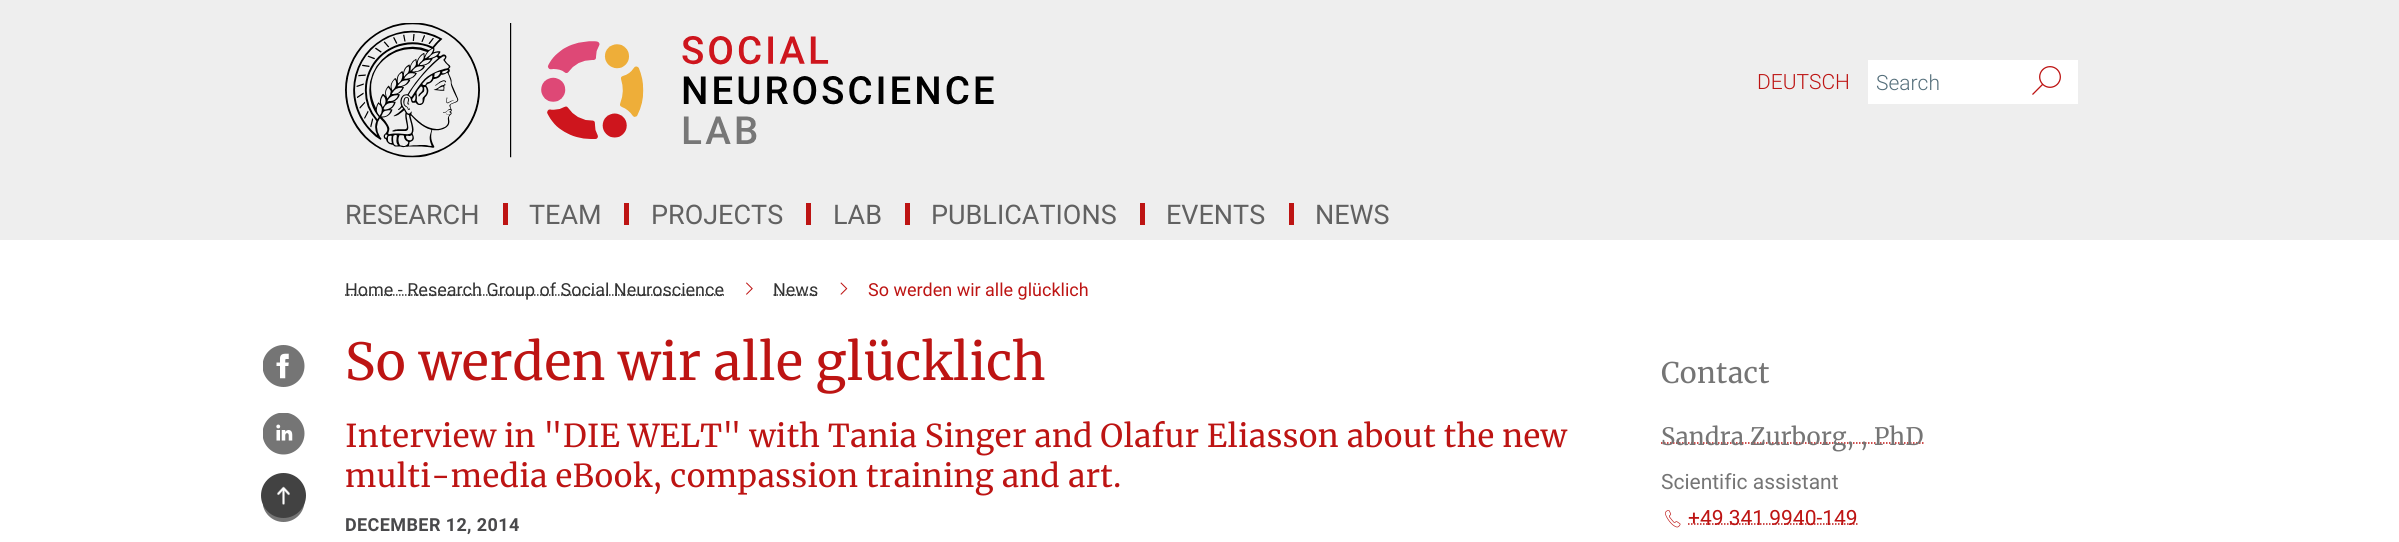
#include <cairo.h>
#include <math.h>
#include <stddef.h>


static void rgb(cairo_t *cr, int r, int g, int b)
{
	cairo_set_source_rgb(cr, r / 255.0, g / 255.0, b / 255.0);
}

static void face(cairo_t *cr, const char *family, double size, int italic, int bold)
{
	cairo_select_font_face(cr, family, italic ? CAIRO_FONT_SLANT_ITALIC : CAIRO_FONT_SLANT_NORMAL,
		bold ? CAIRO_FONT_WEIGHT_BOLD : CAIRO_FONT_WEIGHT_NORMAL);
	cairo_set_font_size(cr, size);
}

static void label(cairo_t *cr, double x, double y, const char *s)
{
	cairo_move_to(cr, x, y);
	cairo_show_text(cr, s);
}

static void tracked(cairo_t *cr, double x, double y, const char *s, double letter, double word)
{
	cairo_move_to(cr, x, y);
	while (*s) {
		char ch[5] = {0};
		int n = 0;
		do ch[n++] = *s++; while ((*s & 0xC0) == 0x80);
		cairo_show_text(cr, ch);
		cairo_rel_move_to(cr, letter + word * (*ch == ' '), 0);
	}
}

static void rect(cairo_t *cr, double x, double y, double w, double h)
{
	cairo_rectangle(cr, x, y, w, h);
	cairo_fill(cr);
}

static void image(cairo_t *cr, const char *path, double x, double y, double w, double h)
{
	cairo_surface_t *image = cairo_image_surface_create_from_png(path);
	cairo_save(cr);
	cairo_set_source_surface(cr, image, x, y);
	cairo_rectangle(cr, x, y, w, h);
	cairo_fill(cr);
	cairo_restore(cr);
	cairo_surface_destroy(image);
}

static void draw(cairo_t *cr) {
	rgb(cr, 255, 255, 255);
	cairo_paint(cr);
	rgb(cr, 238, 238, 238);
	rect(cr, 0, 0, 2399, 240);
	image(cr, "image0.png", 345, 23, 649, 135);
	face(cr, "Roboto Light", 21, 0, 0);
	rgb(cr, 189, 20, 19);
	label(cr, 1757, 89, "DEUTSCH");
	rgb(cr, 255, 255, 255);
	rect(cr, 1868, 60, 210, 44);
	rgb(cr, 84, 110, 122);
	label(cr, 1876, 90, "Search");
	image(cr, "image1.png", 2032, 66, 29, 29);
	rgb(cr, 189, 20, 19);
	rect(cr, 503, 203, 5, 22);
	face(cr, "Roboto", 27, 0, 0);
	rgb(cr, 97, 97, 97);
	label(cr, 345, 224, "RESEARCH");
	rgb(cr, 189, 20, 19);
	rect(cr, 624, 203, 5, 22);
	rgb(cr, 97, 97, 97);
	label(cr, 529, 224, "TEAM");
	rgb(cr, 189, 20, 19);
	rect(cr, 806, 203, 5, 22);
	rgb(cr, 97, 97, 97);
	label(cr, 651, 224, "PROJECTS");
	rgb(cr, 189, 20, 19);
	rect(cr, 905, 203, 5, 22);
	rgb(cr, 97, 97, 97);
	label(cr, 833, 224, "LAB");
	rgb(cr, 189, 20, 19);
	rect(cr, 1140, 203, 5, 22);
	rgb(cr, 97, 97, 97);
	label(cr, 931, 224, "PUBLICATIONS");
	rgb(cr, 189, 20, 19);
	rect(cr, 1289, 203, 5, 22);
	rgb(cr, 97, 97, 97);
	label(cr, 1166, 224, "EVENTS");
	label(cr, 1315, 224, "NEWS");
	image(cr, "image7.png", 263, 502, 42, 20);
	rgb(cr, 66, 66, 66);
	cairo_arc(cr, 283.5, 495.5, 22.5, 0, 2 * M_PI);
	cairo_fill(cr);
	image(cr, "image2.png", 277, 486, 13, 19);
	cairo_new_path(cr);
	cairo_move_to(cr, 345, 295);
	cairo_line_to(cr, 724, 295);
	rgb(cr, 51, 51, 51);
	cairo_set_line_width(cr, 1.5);
	cairo_set_dash(cr, (double[]){1.5, 1.5}, 2, 0);
	cairo_stroke(cr);
	face(cr, "Roboto", 18, 0, 0);
	label(cr, 345, 296, "Home - Research Group of Social Neuroscience");
	image(cr, "image3.png", 746, 282, 7, 13);
	cairo_new_path(cr);
	cairo_move_to(cr, 773.5, 295);
	cairo_line_to(cr, 818.5, 295);
	cairo_stroke(cr);
	label(cr, 773, 296, "News");
	image(cr, "image4.png", 840, 282, 8, 13);
	rgb(cr, 189, 20, 19);
	label(cr, 868, 296, "So werden wir alle glücklich");
	image(cr, "image5.png", 263, 345, 42, 42);
	image(cr, "image6.png", 263, 413, 42, 42);
	face(cr, "Merriweather", 51, 0, 0);
	label(cr, 345, 380, "So werden wir alle glücklich");
	face(cr, "Merriweather", 31.5, 0, 0);
	tracked(cr, 345, 447, "Interview in \"DIE WELT\" with Tania Singer and Olafur Eliasson about the new", 0.15, 0);
	tracked(cr, 345, 487, "multi-media eBook, compassion training and art.", 0.15, 0);
	face(cr, "Roboto", 18, 0, 1);
	rgb(cr, 73, 73, 75);
	tracked(cr, 345, 531, "DECEMBER 12, 2014", 0.4, 0);
	face(cr, "Merriweather", 28.5, 0, 0);
	rgb(cr, 117, 117, 117);
	label(cr, 1661, 383, "Contact");
	cairo_new_path(cr);
	cairo_move_to(cr, 1661, 443);
	cairo_line_to(cr, 1923.5, 443);
	rgb(cr, 189, 20, 19);
	cairo_stroke(cr);
	face(cr, "Merriweather", 24, 0, 0);
	rgb(cr, 117, 117, 117);
	label(cr, 1661, 445, "Sandra Zurborg, , PhD");
	face(cr, "Roboto", 21, 0, 0);
	label(cr, 1661, 489, "Scientific assistant");
	image(cr, "image8.png", 1665, 510, 16, 18);
	cairo_new_path(cr);
	cairo_move_to(cr, 1688, 524);
	cairo_line_to(cr, 1857.5, 524);
	rgb(cr, 189, 20, 19);
	cairo_stroke(cr);
	label(cr, 1688, 525, "+49 341 9940-149");
}

int main(void) {
	cairo_surface_t *surface = cairo_image_surface_create(CAIRO_FORMAT_RGB24, 2399, 542);
	cairo_t *cr = cairo_create(surface);
	cairo_font_options_t *options = cairo_font_options_create();
	cairo_font_options_set_hint_metrics(options, CAIRO_HINT_METRICS_OFF);
	cairo_font_options_set_hint_style(options, CAIRO_HINT_STYLE_NONE);
	cairo_set_font_options(cr, options);
	cairo_set_miter_limit(cr, 4);
	draw(cr);
	cairo_surface_write_to_png(surface, "render.png");
	cairo_font_options_destroy(options);
	cairo_destroy(cr);
	cairo_surface_destroy(surface);
	return 0;
}
